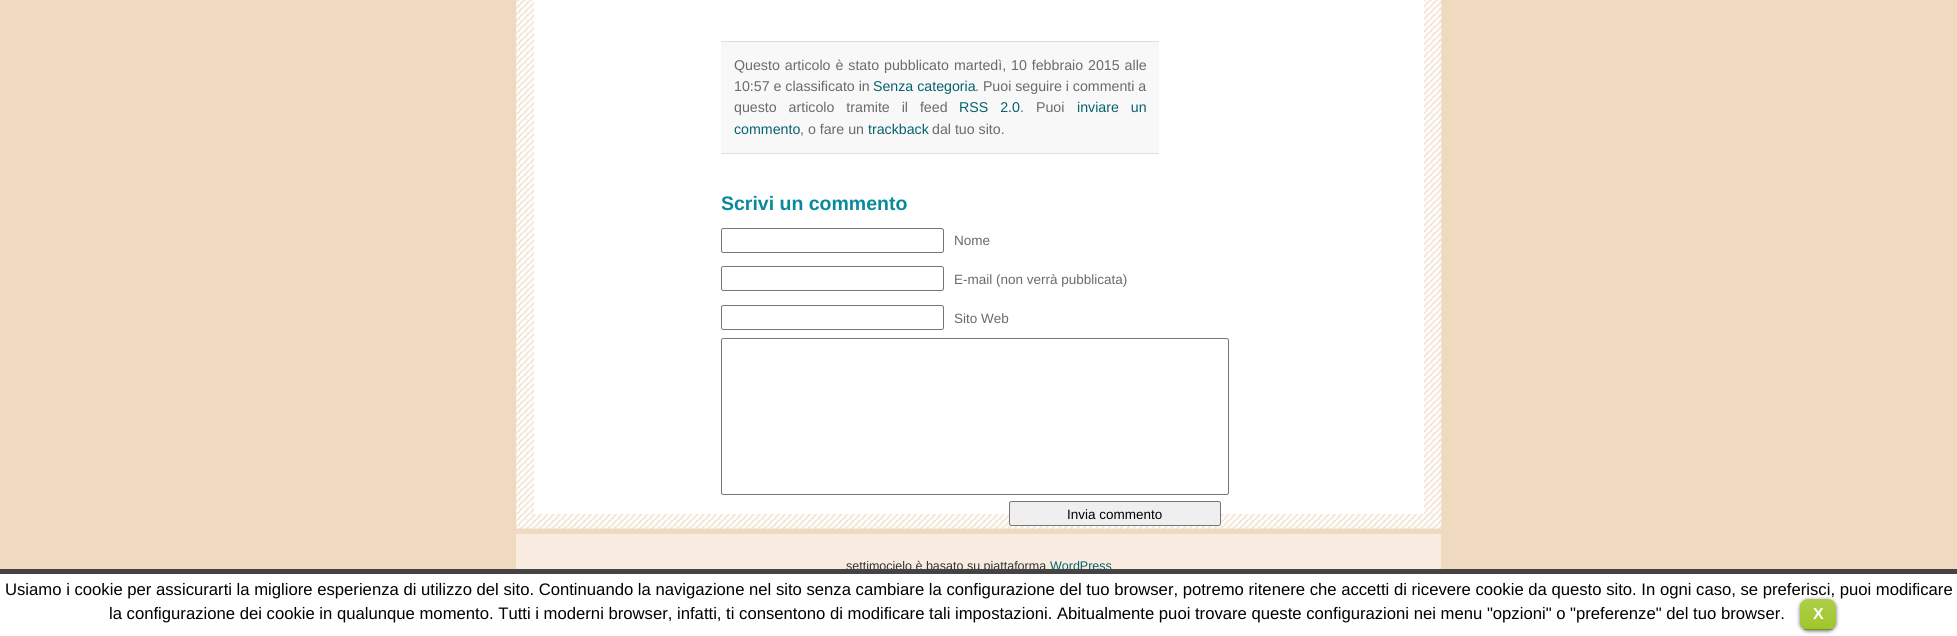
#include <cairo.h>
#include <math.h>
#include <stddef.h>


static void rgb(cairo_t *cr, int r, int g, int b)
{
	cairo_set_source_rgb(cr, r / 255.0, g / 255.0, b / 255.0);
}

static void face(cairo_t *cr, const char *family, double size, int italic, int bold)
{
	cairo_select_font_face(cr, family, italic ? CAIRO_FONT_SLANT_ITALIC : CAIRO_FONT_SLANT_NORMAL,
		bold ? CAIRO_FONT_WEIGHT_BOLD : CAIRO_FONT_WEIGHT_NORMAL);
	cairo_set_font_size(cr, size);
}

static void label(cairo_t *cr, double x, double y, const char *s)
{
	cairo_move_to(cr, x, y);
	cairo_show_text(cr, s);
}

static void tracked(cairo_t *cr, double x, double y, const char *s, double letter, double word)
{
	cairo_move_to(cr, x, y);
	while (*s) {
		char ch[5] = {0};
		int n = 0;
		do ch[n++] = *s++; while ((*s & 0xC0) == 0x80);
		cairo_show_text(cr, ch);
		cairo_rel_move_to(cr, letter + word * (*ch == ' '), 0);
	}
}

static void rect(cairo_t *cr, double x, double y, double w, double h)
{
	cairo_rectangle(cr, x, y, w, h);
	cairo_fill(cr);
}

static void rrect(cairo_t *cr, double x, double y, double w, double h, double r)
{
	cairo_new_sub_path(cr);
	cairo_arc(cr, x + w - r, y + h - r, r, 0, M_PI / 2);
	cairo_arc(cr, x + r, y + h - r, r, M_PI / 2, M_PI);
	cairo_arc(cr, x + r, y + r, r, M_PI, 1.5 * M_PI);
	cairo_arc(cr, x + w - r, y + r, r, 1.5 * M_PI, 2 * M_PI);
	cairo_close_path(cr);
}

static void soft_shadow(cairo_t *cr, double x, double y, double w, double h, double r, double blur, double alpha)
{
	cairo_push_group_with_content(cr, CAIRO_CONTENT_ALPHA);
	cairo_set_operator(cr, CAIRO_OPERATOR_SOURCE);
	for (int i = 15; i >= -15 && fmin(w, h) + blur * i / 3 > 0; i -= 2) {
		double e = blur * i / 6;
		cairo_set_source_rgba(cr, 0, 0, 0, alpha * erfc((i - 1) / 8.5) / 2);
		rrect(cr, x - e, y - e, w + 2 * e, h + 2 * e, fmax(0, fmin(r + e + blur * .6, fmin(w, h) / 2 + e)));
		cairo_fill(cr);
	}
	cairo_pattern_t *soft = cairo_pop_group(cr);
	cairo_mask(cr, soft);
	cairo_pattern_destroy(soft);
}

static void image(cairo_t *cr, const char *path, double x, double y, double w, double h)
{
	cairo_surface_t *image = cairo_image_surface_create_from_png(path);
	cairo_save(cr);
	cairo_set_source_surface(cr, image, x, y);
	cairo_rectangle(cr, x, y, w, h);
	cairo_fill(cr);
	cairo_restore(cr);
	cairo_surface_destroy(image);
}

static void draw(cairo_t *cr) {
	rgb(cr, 239, 217, 191);
	cairo_paint(cr);
	image(cr, "image0.png", 516, 0, 926, 529);
	rgb(cr, 255, 255, 255);
	rect(cr, 534, 0, 890, 514);
	rgb(cr, 248, 248, 248);
	rect(cr, 721, 42, 438, 111);
	rgb(cr, 221, 221, 221);
	rect(cr, 721, 41, 438, 1);
	rect(cr, 721, 153, 438, 1);
	face(cr, "Liberation Sans", 14.2, 0, 0);
	rgb(cr, 106, 106, 106);
	tracked(cr, 734, 70, "Questo articolo è stato pubblicato", 0, 1);
	tracked(cr, 954, 70, "martedì, 10 febbraio 2015 alle", 0, 1);
	label(cr, 734, 91, "10:57 e classificato in");
	rgb(cr, 6, 97, 110);
	label(cr, 873, 91, "Senza categoria");
	rgb(cr, 106, 106, 106);
	label(cr, 975, 91, ". Puoi seguire i commenti a");
	tracked(cr, 734, 112, "questo articolo tramite il feed", 0, 8);
	rgb(cr, 6, 97, 110);
	tracked(cr, 959, 112, "RSS 2.0", 0, 8);
	rgb(cr, 106, 106, 106);
	label(cr, 1020, 112, ".");
	label(cr, 1036, 112, "Puoi");
	rgb(cr, 6, 97, 110);
	tracked(cr, 1077, 112, "inviare un", 0, 8);
	label(cr, 734, 134, "commento");
	rgb(cr, 106, 106, 106);
	label(cr, 800, 134, ", o fare un");
	rgb(cr, 6, 97, 110);
	label(cr, 868, 134, "trackback");
	rgb(cr, 106, 106, 106);
	label(cr, 932, 134, "dal tuo sito.");
	face(cr, "Liberation Sans", 19.5, 0, 1);
	rgb(cr, 9, 138, 156);
	label(cr, 721, 210, "Scrivi un commento");
	rrect(cr, 721.5, 228.5, 222, 24, 2);
	rgb(cr, 118, 118, 118);
	cairo_set_line_width(cr, 1);
	cairo_stroke(cr);
	face(cr, "Liberation Sans", 13.5, 0, 0);
	rgb(cr, 106, 106, 106);
	label(cr, 954, 245, "Nome");
	rrect(cr, 721.5, 266.5, 222, 24, 2);
	rgb(cr, 118, 118, 118);
	cairo_stroke(cr);
	rgb(cr, 106, 106, 106);
	label(cr, 954, 284, "E-mail (non verrà pubblicata)");
	rrect(cr, 721.5, 305.5, 222, 24, 2);
	rgb(cr, 118, 118, 118);
	cairo_stroke(cr);
	rgb(cr, 106, 106, 106);
	label(cr, 954, 323, "Sito Web");
	rrect(cr, 721.5, 338.5, 507, 156, 2);
	rgb(cr, 118, 118, 118);
	cairo_stroke(cr);
	rgb(cr, 239, 239, 239);
	rrect(cr, 1009.5, 501.5, 211, 24, 2);
	cairo_fill_preserve(cr);
	rgb(cr, 118, 118, 118);
	cairo_stroke(cr);
	rgb(cr, 0, 0, 0);
	label(cr, 1067, 519, "Invia commento");
	rgb(cr, 247, 236, 223);
	rect(cr, 516, 534, 925, 35);
	face(cr, "Liberation Sans", 12.5, 0, 0);
	rgb(cr, 51, 51, 51);
	label(cr, 846, 570, "settimocielo è basato su piattaforma");
	rgb(cr, 6, 97, 110);
	label(cr, 1050, 570, "WordPress");
	rgb(cr, 255, 255, 255);
	rect(cr, 0, 574, 1957, 62);
	rgb(cr, 68, 68, 68);
	rect(cr, 0, 569, 1957, 5);
	face(cr, "Liberation Sans", 16.67, 0, 0);
	rgb(cr, 0, 0, 0);
	label(cr, 5, 595, "Usiamo i cookie per assicurarti la migliore esperienza di utilizzo del sito. Continuando la navigazione nel sito senza cambiare la configurazione del tuo browser, potremo ritenere che accetti di ricevere cookie da questo sito. In ogni caso, se preferisci, puoi modificare");
	label(cr, 109, 619, "la configurazione dei cookie in qualunque momento. Tutti i moderni browser, infatti, ti consentono di modificare tali impostazioni. Abitualmente puoi trovare queste configurazioni nei menu \"opzioni\" o \"preferenze\" del tuo browser.");
	rgb(cr, 0, 0, 0);
	soft_shadow(cr, 1800, 600, 36, 31, 8, 2, 0.6);
	rgb(cr, 145, 189, 9);
	rrect(cr, 1800, 599, 36, 31, 8);
	cairo_fill(cr);
	image(cr, "image1.png", 1800, 599, 36, 31);
	cairo_set_source_rgba(cr, 0, 0, 0, 0.25);
	rect(cr, 1804, 629, 29, 1);
	face(cr, "Liberation Sans", 16, 0, 1);
	rgb(cr, 255, 255, 255);
	label(cr, 1813, 619, "X");
}

int main(void) {
	cairo_surface_t *surface = cairo_image_surface_create(CAIRO_FORMAT_RGB24, 1957, 636);
	cairo_t *cr = cairo_create(surface);
	cairo_font_options_t *options = cairo_font_options_create();
	cairo_font_options_set_hint_metrics(options, CAIRO_HINT_METRICS_OFF);
	cairo_font_options_set_hint_style(options, CAIRO_HINT_STYLE_NONE);
	cairo_set_font_options(cr, options);
	cairo_set_miter_limit(cr, 4);
	draw(cr);
	cairo_surface_write_to_png(surface, "render.png");
	cairo_font_options_destroy(options);
	cairo_destroy(cr);
	cairo_surface_destroy(surface);
	return 0;
}
